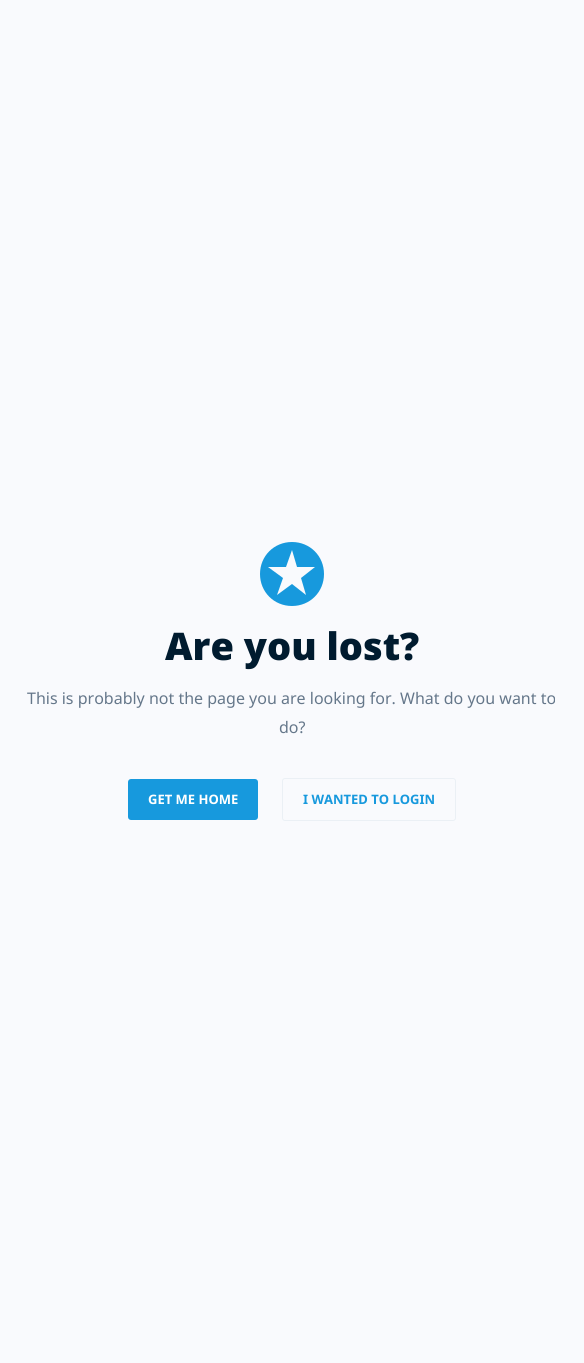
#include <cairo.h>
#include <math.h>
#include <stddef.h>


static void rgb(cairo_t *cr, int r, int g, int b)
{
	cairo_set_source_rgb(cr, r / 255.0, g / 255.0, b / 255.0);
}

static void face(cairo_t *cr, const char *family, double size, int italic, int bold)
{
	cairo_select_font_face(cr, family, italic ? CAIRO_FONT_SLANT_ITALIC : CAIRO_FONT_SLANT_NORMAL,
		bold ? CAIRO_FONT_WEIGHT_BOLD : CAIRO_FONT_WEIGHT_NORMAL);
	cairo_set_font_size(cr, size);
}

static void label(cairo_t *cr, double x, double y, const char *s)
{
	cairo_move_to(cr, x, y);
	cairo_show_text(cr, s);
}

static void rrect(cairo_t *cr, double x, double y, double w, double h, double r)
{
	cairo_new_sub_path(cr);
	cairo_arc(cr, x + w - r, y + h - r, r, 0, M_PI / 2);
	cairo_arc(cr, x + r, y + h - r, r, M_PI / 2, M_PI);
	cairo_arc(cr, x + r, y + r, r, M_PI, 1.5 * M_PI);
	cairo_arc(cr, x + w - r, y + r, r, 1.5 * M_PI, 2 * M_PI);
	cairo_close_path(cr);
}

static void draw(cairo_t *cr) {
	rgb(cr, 249, 250, 253);
	cairo_paint(cr);
	rgb(cr, 23, 153, 221);
	cairo_set_fill_rule(cr, CAIRO_FILL_RULE_EVEN_ODD);
	cairo_new_path(cr);
	cairo_move_to(cr, 292, 542);
	cairo_curve_to(cr, 274, 542, 260, 556, 260, 574);
	cairo_curve_to(cr, 260, 592, 274, 606, 292, 606);
	cairo_curve_to(cr, 310, 606, 324, 592, 324, 574);
	cairo_curve_to(cr, 324, 556, 310, 542, 292, 542);
	cairo_close_path(cr);
	cairo_move_to(cr, 306, 595);
	cairo_line_to(cr, 292, 584);
	cairo_line_to(cr, 277, 595);
	cairo_line_to(cr, 283, 578);
	cairo_line_to(cr, 268, 567);
	cairo_line_to(cr, 286, 567);
	cairo_line_to(cr, 292, 550);
	cairo_line_to(cr, 297, 567);
	cairo_line_to(cr, 315, 567);
	cairo_line_to(cr, 301, 578);
	cairo_close_path(cr);
	cairo_fill(cr);
	face(cr, "Noto Sans Black", 38, 0, 0);
	rgb(cr, 0, 27, 47);
	label(cr, 165, 660, "Are you lost?");
	face(cr, "Noto Sans", 16, 0, 0);
	rgb(cr, 101, 119, 138);
	label(cr, 27, 704, "This is probably not the page you are looking for. What do you want to");
	label(cr, 279, 733, "do?");
	rgb(cr, 23, 153, 221);
	rrect(cr, 128, 779, 130, 41, 3);
	cairo_fill(cr);
	face(cr, "Noto Sans", 13, 0, 1);
	rgb(cr, 255, 255, 255);
	label(cr, 148, 804, "GET ME HOME");
	rrect(cr, 282.5, 778.5, 173, 42, 2.5);
	rgb(cr, 235, 240, 245);
	cairo_set_line_width(cr, 1);
	cairo_stroke(cr);
	rgb(cr, 23, 153, 221);
	label(cr, 303, 804, "I WANTED TO LOGIN");
}

int main(void) {
	cairo_surface_t *surface = cairo_image_surface_create(CAIRO_FORMAT_RGB24, 584, 1363);
	cairo_t *cr = cairo_create(surface);
	cairo_font_options_t *options = cairo_font_options_create();
	cairo_font_options_set_hint_metrics(options, CAIRO_HINT_METRICS_OFF);
	cairo_font_options_set_hint_style(options, CAIRO_HINT_STYLE_NONE);
	cairo_set_font_options(cr, options);
	cairo_set_miter_limit(cr, 4);
	draw(cr);
	cairo_surface_write_to_png(surface, "render.png");
	cairo_font_options_destroy(options);
	cairo_destroy(cr);
	cairo_surface_destroy(surface);
	return 0;
}
